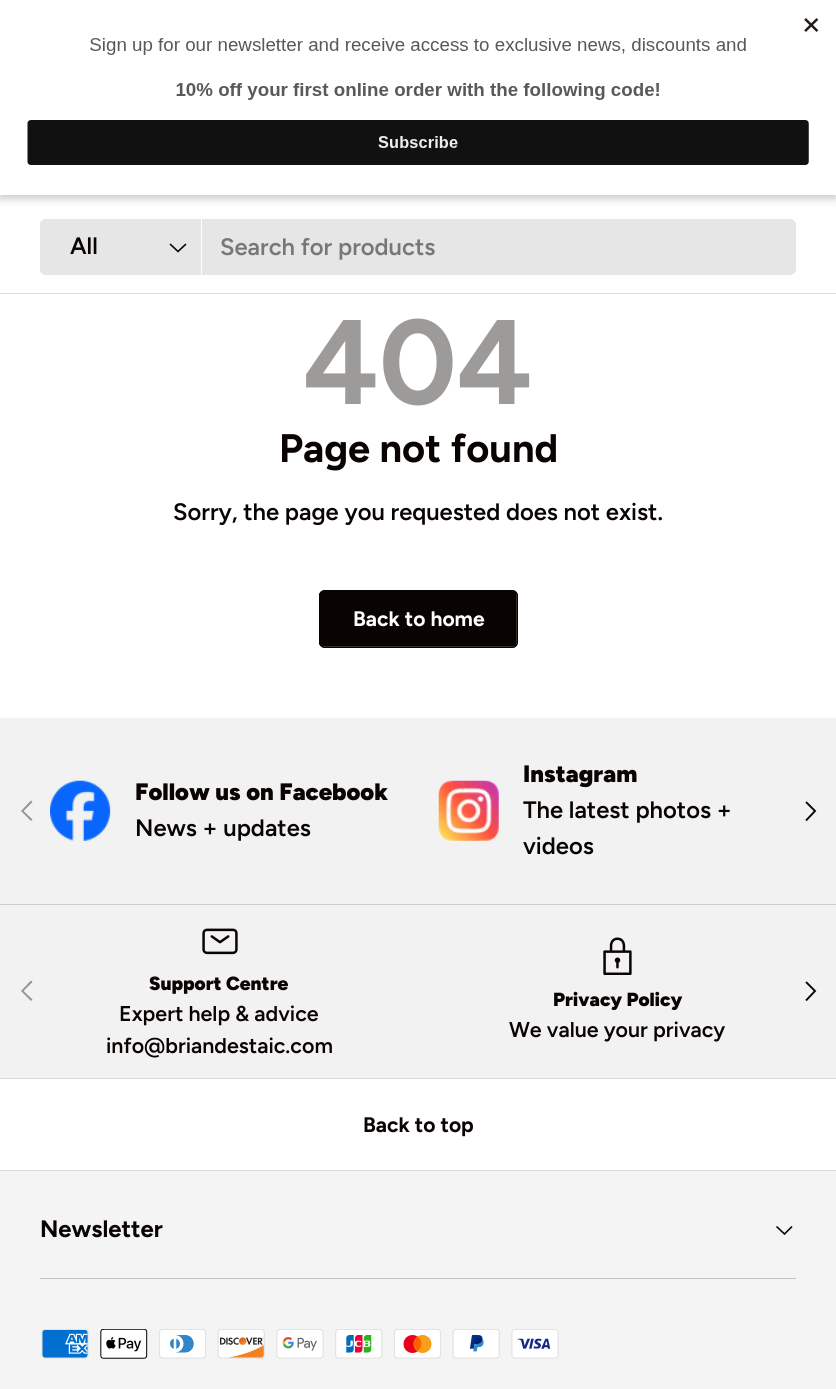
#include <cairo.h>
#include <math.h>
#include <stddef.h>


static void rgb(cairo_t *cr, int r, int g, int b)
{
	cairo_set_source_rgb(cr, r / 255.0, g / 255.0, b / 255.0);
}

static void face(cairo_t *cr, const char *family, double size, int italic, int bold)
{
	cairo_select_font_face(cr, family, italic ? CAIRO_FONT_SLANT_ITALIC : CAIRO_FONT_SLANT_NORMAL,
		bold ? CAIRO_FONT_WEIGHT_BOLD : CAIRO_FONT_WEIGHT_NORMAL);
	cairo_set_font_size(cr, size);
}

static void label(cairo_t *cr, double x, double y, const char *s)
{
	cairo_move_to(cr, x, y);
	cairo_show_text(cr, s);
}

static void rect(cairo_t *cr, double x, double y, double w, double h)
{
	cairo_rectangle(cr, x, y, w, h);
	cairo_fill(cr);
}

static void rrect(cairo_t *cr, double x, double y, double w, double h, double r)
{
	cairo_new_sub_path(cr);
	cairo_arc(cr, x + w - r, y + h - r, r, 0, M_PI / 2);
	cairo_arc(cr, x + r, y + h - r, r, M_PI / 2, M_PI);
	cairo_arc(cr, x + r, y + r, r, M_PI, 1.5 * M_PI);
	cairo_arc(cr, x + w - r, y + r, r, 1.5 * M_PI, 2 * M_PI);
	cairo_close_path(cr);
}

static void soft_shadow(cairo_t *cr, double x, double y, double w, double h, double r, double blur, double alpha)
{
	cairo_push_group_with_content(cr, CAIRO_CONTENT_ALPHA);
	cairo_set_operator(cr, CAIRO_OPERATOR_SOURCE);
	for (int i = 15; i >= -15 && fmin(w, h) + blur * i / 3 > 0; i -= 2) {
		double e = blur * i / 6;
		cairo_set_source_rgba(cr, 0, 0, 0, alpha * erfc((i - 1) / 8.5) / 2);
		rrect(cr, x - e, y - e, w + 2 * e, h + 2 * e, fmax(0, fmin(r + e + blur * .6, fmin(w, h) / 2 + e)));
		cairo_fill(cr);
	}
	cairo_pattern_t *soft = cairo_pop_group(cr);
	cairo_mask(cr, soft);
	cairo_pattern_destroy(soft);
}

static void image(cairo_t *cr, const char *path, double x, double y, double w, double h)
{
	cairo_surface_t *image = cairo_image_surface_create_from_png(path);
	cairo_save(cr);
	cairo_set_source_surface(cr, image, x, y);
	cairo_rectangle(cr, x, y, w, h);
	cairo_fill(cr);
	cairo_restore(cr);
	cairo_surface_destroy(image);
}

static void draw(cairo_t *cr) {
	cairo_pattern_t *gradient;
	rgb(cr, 255, 255, 255);
	cairo_paint(cr);
	rgb(cr, 0, 0, 0);
	soft_shadow(cr, 0, 4, 836, 195, 0, 4, 0.2);
	rgb(cr, 255, 255, 255);
	rect(cr, 0, 0, 836, 195);
	image(cr, "image0.png", 27, 18, 792, 147);
	rgb(cr, 218, 218, 218);
	rect(cr, 0, 293, 836, 1);
	rgb(cr, 230, 230, 230);
	rrect(cr, 40, 219, 756, 56, 6);
	cairo_fill(cr);
	cairo_new_path(cr);
	cairo_move_to(cr, 46, 219);
	cairo_line_to(cr, 203, 219);
	cairo_line_to(cr, 203, 275);
	cairo_line_to(cr, 46, 275);
	cairo_curve_to(cr, 42.5, 275, 40, 272.5, 40, 269);
	cairo_line_to(cr, 40, 225);
	cairo_curve_to(cr, 40, 221.5, 42.5, 219, 46, 219);
	cairo_close_path(cr);
	cairo_fill(cr);
	rgb(cr, 255, 255, 255);
	rect(cr, 201, 219, 1, 56);
	face(cr, "Figtree SemiBold", 23.75, 0, 0);
	rgb(cr, 9, 3, 2);
	label(cr, 70, 254, "All");
	cairo_new_path(cr);
	cairo_move_to(cr, 186, 244);
	cairo_line_to(cr, 178, 251.5);
	cairo_line_to(cr, 170, 244);
	rgb(cr, 7, 7, 7);
	cairo_set_line_width(cr, 1.6);
	cairo_stroke(cr);
	rgb(cr, 119, 119, 119);
	label(cr, 220, 255, "Search for products");
	face(cr, "Figtree", 120, 0, 1);
	rgb(cr, 157, 154, 154);
	label(cr, 303, 404, "404");
	face(cr, "Figtree", 39.75, 0, 1);
	rgb(cr, 9, 3, 2);
	label(cr, 279, 462, "Page not found");
	face(cr, "Figtree SemiBold", 23.75, 0, 0);
	label(cr, 173, 520, "Sorry, the page you requested does not exist.");
	rgb(cr, 54, 48, 47);
	rrect(cr, 319, 590, 199, 58, 6);
	cairo_fill(cr);
	cairo_save(cr);
	rrect(cr, 319, 590, 199, 58, 6);
	cairo_clip(cr);
	gradient = cairo_pattern_create_linear(-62, 548, 505, 689);
	cairo_pattern_add_color_stop_rgba(gradient, 0.6, 0.212, 0.188, 0.184, 1);
	cairo_pattern_add_color_stop_rgba(gradient, 0.6, 0.035, 0.012, 0.008, 1);
	cairo_pattern_add_color_stop_rgba(gradient, 1, 0.035, 0.012, 0.008, 1);
	cairo_set_source(cr, gradient);
	cairo_pattern_destroy(gradient);
	rect(cr, 319, 591, 197, 55);
	cairo_restore(cr);
	rrect(cr, 319.5, 590.5, 198, 57, 5.5);
	rgb(cr, 9, 3, 2);
	cairo_set_line_width(cr, 1);
	cairo_stroke(cr);
	face(cr, "Figtree", 21, 0, 1);
	rgb(cr, 255, 255, 255);
	label(cr, 353, 626, "Back to home");
	rgb(cr, 242, 242, 242);
	rect(cr, 0, 718, 836, 186);
	image(cr, "image1.png", 50, 780, 61, 61);
	face(cr, "Figtree Black", 23.75, 0, 0);
	rgb(cr, 9, 3, 2);
	label(cr, 135, 800, "Follow us on Facebook");
	face(cr, "Figtree SemiBold", 23.75, 0, 0);
	label(cr, 135, 836, "News + updates");
	image(cr, "image2.png", 438, 780, 61, 61);
	face(cr, "Figtree Black", 23.75, 0, 0);
	label(cr, 523, 782, "Instagram");
	face(cr, "Figtree SemiBold", 23.75, 0, 0);
	label(cr, 523, 818, "The latest photos +");
	label(cr, 523, 854, "videos");
	rgb(cr, 149, 146, 146);
	cairo_new_path(cr);
	cairo_move_to(cr, 21, 811);
	cairo_line_to(cr, 31, 800.5);
	cairo_line_to(cr, 32.5, 802);
	cairo_line_to(cr, 23.5, 811);
	cairo_line_to(cr, 32.5, 819.5);
	cairo_line_to(cr, 31, 821);
	cairo_close_path(cr);
	cairo_fill(cr);
	cairo_new_path(cr);
	cairo_move_to(cr, 806, 802);
	cairo_line_to(cr, 815, 811);
	cairo_line_to(cr, 806, 820.5);
	rgb(cr, 9, 3, 2);
	cairo_set_line_width(cr, 1.9);
	cairo_stroke(cr);
	rgb(cr, 242, 242, 242);
	rect(cr, 0, 905, 836, 173);
	rgb(cr, 207, 206, 206);
	rect(cr, 0, 904, 836, 1);
	image(cr, "image3.png", 202, 928, 36, 27);
	face(cr, "Figtree Black", 19, 0, 0);
	rgb(cr, 9, 3, 2);
	label(cr, 149, 990, "Support Centre");
	face(cr, "Figtree SemiBold", 21.4, 0, 0);
	label(cr, 119, 1021, "Expert help & advice");
	label(cr, 106, 1053, "info@briandestaic.com");
	image(cr, "image4.png", 603, 937, 29, 38);
	face(cr, "Figtree Black", 19, 0, 0);
	label(cr, 553, 1006, "Privacy Policy");
	face(cr, "Figtree SemiBold", 21.4, 0, 0);
	label(cr, 509, 1037, "We value your privacy");
	rgb(cr, 149, 146, 146);
	cairo_new_path(cr);
	cairo_move_to(cr, 21, 991);
	cairo_line_to(cr, 31, 980.5);
	cairo_line_to(cr, 32.5, 982);
	cairo_line_to(cr, 23.5, 991);
	cairo_line_to(cr, 32.5, 999.5);
	cairo_line_to(cr, 31, 1001);
	cairo_close_path(cr);
	cairo_fill(cr);
	cairo_new_path(cr);
	cairo_move_to(cr, 806, 982);
	cairo_line_to(cr, 815, 991);
	cairo_line_to(cr, 806, 1000.5);
	rgb(cr, 9, 3, 2);
	cairo_stroke(cr);
	rgb(cr, 218, 217, 217);
	rect(cr, 0, 1078, 836, 1);
	rect(cr, 0, 1170, 836, 1);
	face(cr, "Figtree", 21, 0, 1);
	rgb(cr, 9, 3, 2);
	label(cr, 363, 1132, "Back to top");
	rgb(cr, 244, 244, 244);
	rect(cr, 0, 1171, 836, 218);
	rgb(cr, 197, 197, 197);
	rect(cr, 40, 1278, 756, 1);
	face(cr, "Figtree", 23.75, 0, 1);
	rgb(cr, 9, 3, 2);
	label(cr, 40, 1237, "Newsletter");
	cairo_new_path(cr);
	cairo_move_to(cr, 792, 1226.5);
	cairo_line_to(cr, 784.5, 1234);
	cairo_line_to(cr, 776.5, 1226.5);
	rgb(cr, 7, 7, 7);
	cairo_set_line_width(cr, 1.6);
	cairo_stroke(cr);
	image(cr, "image5.png", 41, 1329, 48, 30);
	image(cr, "image6.png", 100, 1329, 48, 30);
	image(cr, "image7.png", 159, 1329, 47, 30);
	image(cr, "image8.png", 217, 1329, 48, 30);
	image(cr, "image9.png", 276, 1329, 48, 30);
	image(cr, "image10.png", 335, 1329, 48, 30);
	image(cr, "image11.png", 394, 1329, 47, 30);
	image(cr, "image12.png", 452, 1329, 48, 30);
	image(cr, "image13.png", 511, 1329, 48, 30);
}

int main(void) {
	cairo_surface_t *surface = cairo_image_surface_create(CAIRO_FORMAT_RGB24, 836, 1389);
	cairo_t *cr = cairo_create(surface);
	cairo_font_options_t *options = cairo_font_options_create();
	cairo_font_options_set_hint_metrics(options, CAIRO_HINT_METRICS_OFF);
	cairo_font_options_set_hint_style(options, CAIRO_HINT_STYLE_NONE);
	cairo_set_font_options(cr, options);
	cairo_set_miter_limit(cr, 4);
	draw(cr);
	cairo_surface_write_to_png(surface, "render.png");
	cairo_font_options_destroy(options);
	cairo_destroy(cr);
	cairo_surface_destroy(surface);
	return 0;
}
